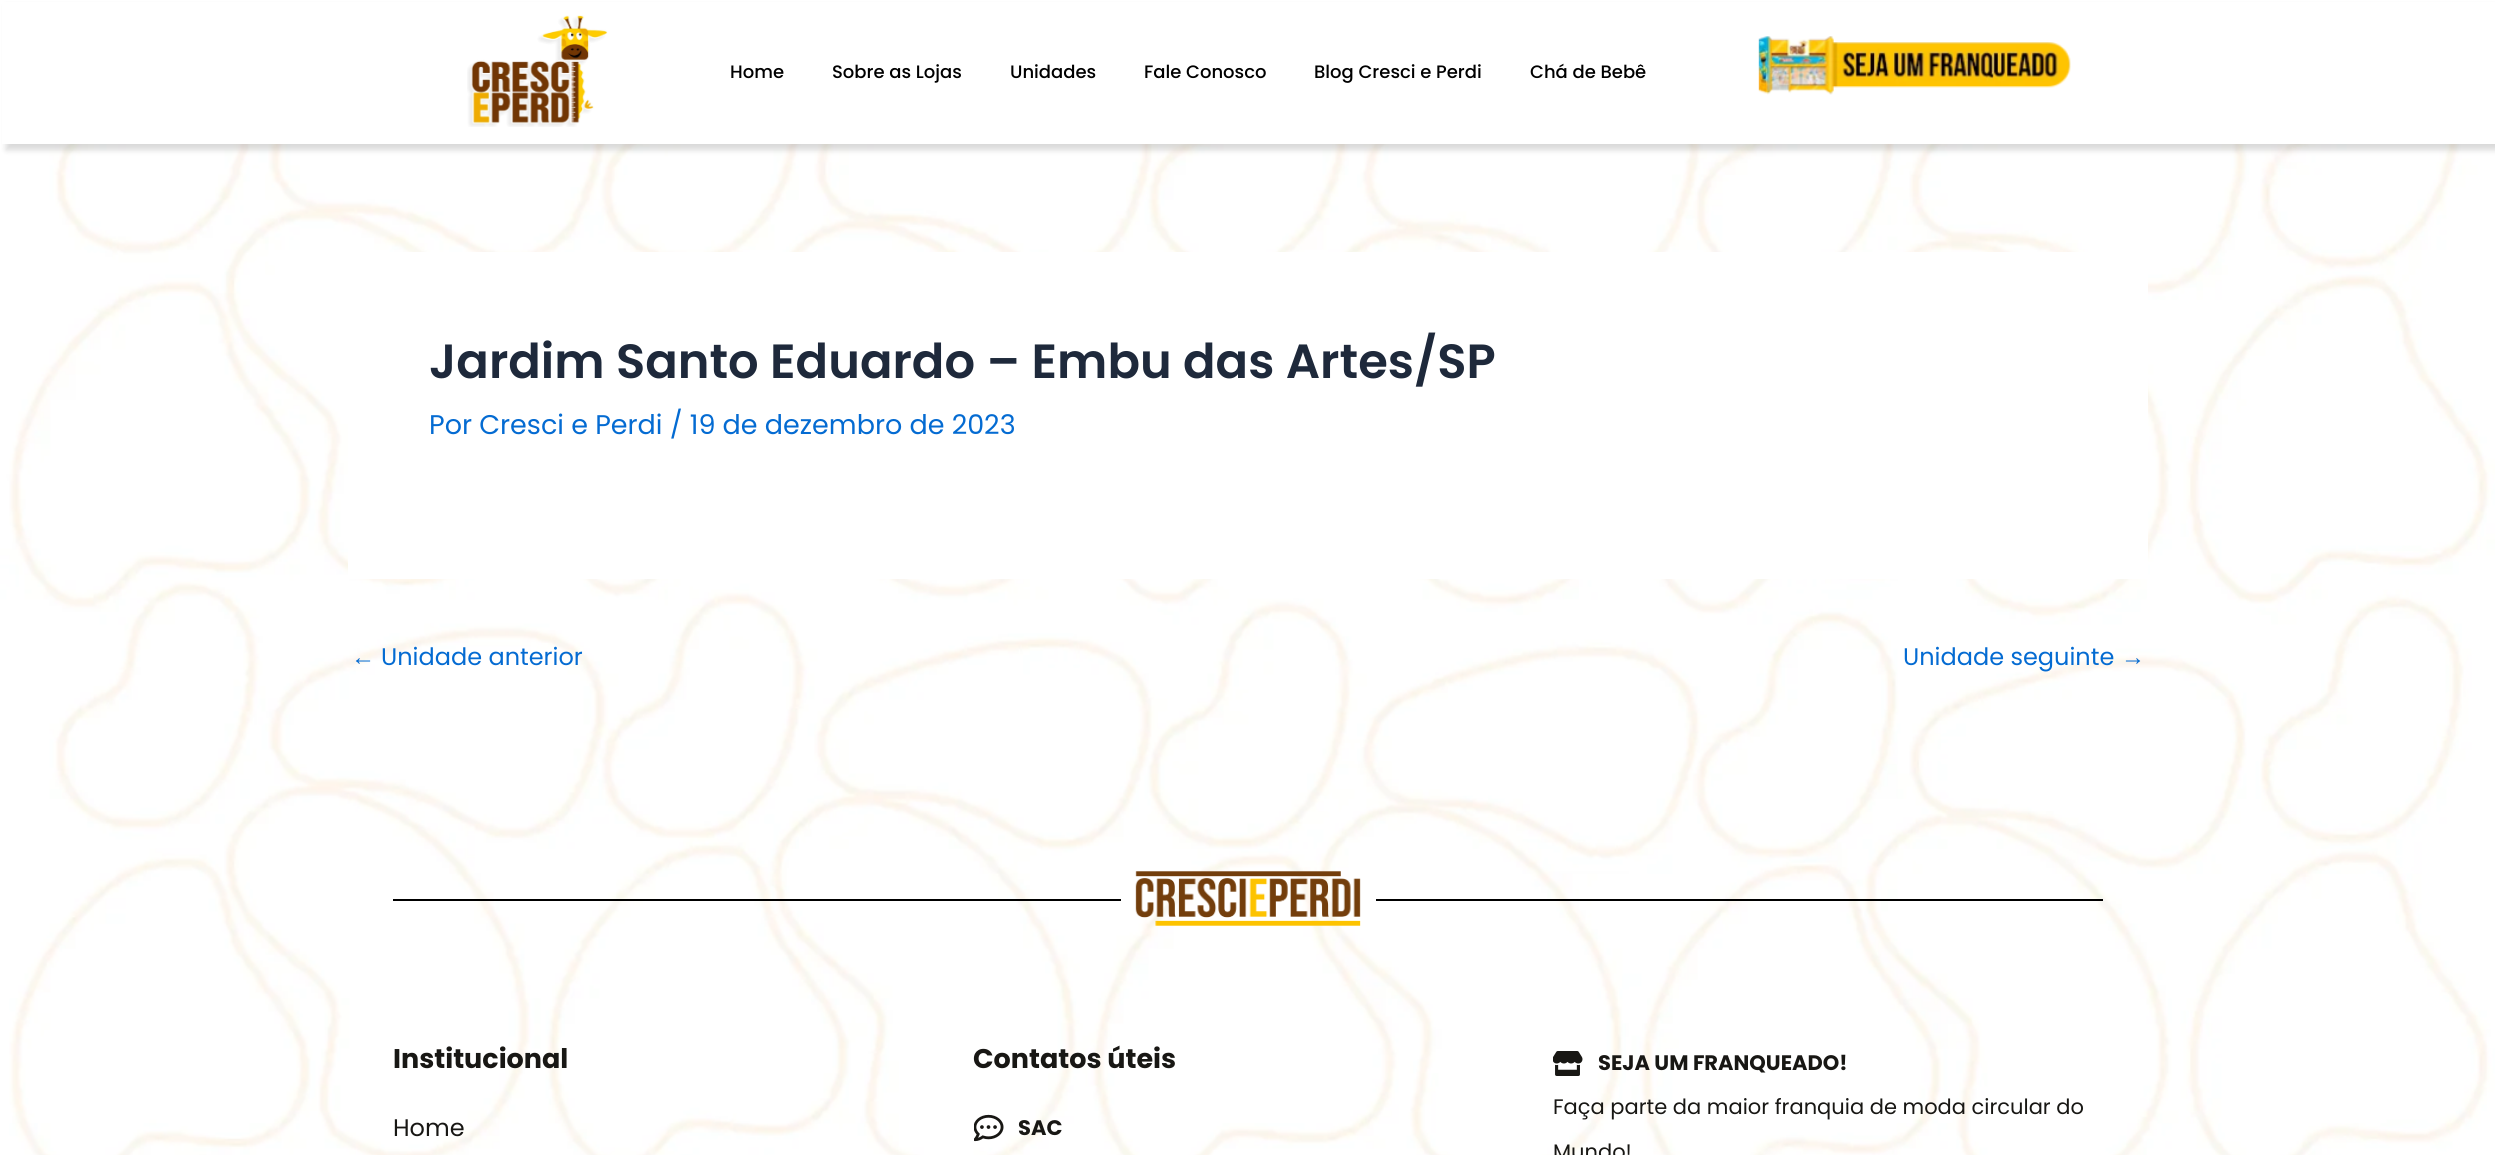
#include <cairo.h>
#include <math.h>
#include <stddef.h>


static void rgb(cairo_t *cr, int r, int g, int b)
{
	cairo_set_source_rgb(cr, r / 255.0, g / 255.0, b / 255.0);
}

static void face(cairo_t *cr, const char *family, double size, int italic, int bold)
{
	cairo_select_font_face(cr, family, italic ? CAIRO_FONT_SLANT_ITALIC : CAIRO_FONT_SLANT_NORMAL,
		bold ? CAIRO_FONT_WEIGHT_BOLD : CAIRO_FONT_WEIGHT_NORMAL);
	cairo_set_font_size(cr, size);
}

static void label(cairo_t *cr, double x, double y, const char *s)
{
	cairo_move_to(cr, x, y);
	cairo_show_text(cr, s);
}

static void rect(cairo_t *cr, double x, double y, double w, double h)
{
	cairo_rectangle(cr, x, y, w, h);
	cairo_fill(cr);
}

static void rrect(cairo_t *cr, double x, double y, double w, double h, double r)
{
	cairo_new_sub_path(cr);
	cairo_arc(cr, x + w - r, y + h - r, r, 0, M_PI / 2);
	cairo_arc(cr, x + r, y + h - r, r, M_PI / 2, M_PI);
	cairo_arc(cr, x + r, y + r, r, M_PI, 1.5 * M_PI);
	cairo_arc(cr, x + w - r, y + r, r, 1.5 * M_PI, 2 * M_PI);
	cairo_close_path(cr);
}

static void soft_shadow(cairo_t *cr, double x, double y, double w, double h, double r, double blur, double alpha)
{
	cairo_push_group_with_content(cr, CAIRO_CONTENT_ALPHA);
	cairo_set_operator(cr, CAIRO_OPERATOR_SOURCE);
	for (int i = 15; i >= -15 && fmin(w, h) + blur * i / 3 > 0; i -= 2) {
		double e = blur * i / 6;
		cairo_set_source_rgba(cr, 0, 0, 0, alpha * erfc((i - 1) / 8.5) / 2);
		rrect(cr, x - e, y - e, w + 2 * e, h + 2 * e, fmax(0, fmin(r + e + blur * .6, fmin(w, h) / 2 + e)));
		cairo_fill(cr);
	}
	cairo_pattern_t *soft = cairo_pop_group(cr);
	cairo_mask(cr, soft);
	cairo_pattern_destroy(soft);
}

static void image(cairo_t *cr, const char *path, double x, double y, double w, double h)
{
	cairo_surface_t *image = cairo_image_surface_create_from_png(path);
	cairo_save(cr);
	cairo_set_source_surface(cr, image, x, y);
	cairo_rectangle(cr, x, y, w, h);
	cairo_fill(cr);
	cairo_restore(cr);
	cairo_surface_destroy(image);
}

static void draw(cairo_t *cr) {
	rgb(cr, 255, 255, 255);
	cairo_paint(cr);
	image(cr, "image0.png", 0, 144, 2495, 1011);
	rgb(cr, 0, 0, 0);
	soft_shadow(cr, 6, 6, 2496, 144, 0, 3, 0.15);
	rgb(cr, 255, 255, 255);
	rect(cr, 2, 2, 2493, 142);
	image(cr, "image1.png", 467, 15, 141, 112);
	face(cr, "Poppins Medium", 18, 0, 0);
	rgb(cr, 0, 0, 0);
	label(cr, 730, 78, "Home");
	label(cr, 832, 78, "Sobre as Lojas");
	label(cr, 1010, 78, "Unidades");
	label(cr, 1144, 78, "Fale Conosco");
	label(cr, 1314, 78, "Blog Cresci e Perdi");
	label(cr, 1530, 78, "Chá de Bebê");
	image(cr, "image2.png", 1758, 36, 313, 59);
	rgb(cr, 255, 255, 255);
	rect(cr, 348, 252, 1800, 327);
	face(cr, "Poppins SemiBold", 48, 0, 0);
	rgb(cr, 30, 41, 59);
	label(cr, 429, 378, "Jardim Santo Eduardo – Embu das Artes/SP");
	face(cr, "Poppins", 27, 0, 0);
	rgb(cr, 4, 107, 210);
	label(cr, 429, 434, "Por Cresci e Perdi / 19 de dezembro de 2023");
	face(cr, "Liberation Sans", 24, 0, 0);
	label(cr, 351, 665, "←");
	face(cr, "Poppins", 24, 0, 0);
	label(cr, 381, 665, "Unidade anterior");
	label(cr, 1903, 665, "Unidade seguinte");
	face(cr, "Liberation Sans", 24, 0, 0);
	label(cr, 2121, 665, "→");
	rgb(cr, 0, 0, 0);
	rect(cr, 393, 899, 728, 2);
	image(cr, "image3.png", 1135, 871, 226, 55);
	rect(cr, 1376, 899, 727, 2);
	face(cr, "Poppins", 27, 0, 1);
	rgb(cr, 24, 23, 20);
	label(cr, 393, 1068, "Institucional");
	face(cr, "Poppins", 24, 0, 0);
	label(cr, 393, 1136, "Home");
	face(cr, "Poppins", 27, 0, 1);
	label(cr, 973, 1068, "Contatos úteis");
	image(cr, "image4.png", 974, 1114, 30, 28);
	face(cr, "Poppins", 21, 0, 1);
	label(cr, 1018, 1135, "SAC");
	image(cr, "image5.png", 1553, 1051, 30, 25);
	label(cr, 1598, 1070, "SEJA UM FRANQUEADO!");
	face(cr, "Poppins", 21, 0, 0);
	label(cr, 1553, 1114, "Faça parte da maior franquia de moda circular do");
	label(cr, 1553, 1159, "Mundo!");
}

int main(void) {
	cairo_surface_t *surface = cairo_image_surface_create(CAIRO_FORMAT_RGB24, 2495, 1155);
	cairo_t *cr = cairo_create(surface);
	cairo_font_options_t *options = cairo_font_options_create();
	cairo_font_options_set_hint_metrics(options, CAIRO_HINT_METRICS_OFF);
	cairo_font_options_set_hint_style(options, CAIRO_HINT_STYLE_NONE);
	cairo_set_font_options(cr, options);
	cairo_set_miter_limit(cr, 4);
	draw(cr);
	cairo_surface_write_to_png(surface, "render.png");
	cairo_font_options_destroy(options);
	cairo_destroy(cr);
	cairo_surface_destroy(surface);
	return 0;
}
